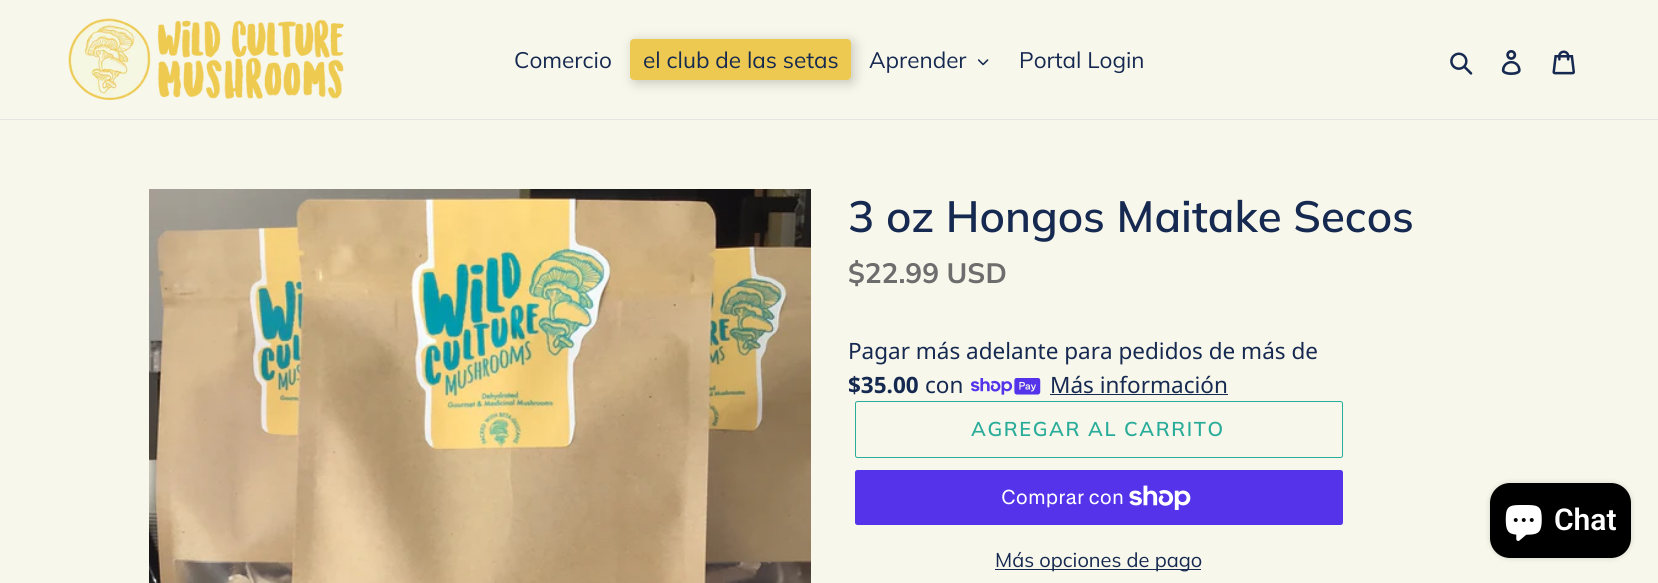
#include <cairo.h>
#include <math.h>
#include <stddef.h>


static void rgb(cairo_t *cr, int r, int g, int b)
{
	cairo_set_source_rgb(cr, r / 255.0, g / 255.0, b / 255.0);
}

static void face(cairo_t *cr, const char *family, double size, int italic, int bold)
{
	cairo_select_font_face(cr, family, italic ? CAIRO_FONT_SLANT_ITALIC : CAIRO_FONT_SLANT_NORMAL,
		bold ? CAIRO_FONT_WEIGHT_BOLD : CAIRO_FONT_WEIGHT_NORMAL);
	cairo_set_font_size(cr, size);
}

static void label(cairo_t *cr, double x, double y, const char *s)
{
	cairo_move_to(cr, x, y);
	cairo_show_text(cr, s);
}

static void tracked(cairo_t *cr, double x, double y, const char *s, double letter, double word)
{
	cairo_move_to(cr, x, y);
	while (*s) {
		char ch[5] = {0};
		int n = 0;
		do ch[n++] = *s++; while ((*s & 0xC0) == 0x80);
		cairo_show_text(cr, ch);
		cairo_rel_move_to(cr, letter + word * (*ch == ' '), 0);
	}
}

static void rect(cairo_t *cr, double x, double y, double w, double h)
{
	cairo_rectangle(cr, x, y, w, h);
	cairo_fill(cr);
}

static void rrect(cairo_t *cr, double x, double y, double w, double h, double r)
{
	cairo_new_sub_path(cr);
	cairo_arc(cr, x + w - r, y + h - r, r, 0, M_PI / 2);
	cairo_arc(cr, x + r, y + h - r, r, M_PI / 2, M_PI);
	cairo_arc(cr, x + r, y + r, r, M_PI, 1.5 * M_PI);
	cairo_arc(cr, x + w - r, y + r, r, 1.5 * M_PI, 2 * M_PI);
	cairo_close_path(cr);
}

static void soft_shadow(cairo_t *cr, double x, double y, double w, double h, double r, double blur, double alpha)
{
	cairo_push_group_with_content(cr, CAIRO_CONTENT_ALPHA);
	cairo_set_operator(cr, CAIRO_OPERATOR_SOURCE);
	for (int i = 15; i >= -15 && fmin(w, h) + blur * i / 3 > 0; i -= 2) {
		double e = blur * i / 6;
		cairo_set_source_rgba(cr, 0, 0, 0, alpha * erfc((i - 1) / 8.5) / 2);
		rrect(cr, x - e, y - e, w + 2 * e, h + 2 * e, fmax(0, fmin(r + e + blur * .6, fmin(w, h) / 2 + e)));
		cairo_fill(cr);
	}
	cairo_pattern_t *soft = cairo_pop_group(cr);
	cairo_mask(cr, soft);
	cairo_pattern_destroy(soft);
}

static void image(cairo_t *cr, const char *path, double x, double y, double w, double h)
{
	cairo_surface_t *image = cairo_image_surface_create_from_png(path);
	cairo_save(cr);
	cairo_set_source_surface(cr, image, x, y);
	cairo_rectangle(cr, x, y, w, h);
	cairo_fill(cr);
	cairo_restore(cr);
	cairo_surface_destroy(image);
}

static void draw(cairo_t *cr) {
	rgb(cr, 247, 247, 235);
	cairo_paint(cr);
	rgb(cr, 228, 228, 228);
	rect(cr, 0, 119, 1658, 1);
	image(cr, "image0.png", 68, 18, 276, 82);
	face(cr, "Muli", 22.5, 0, 0);
	rgb(cr, 22, 41, 80);
	label(cr, 514, 68, "Comercio");
	rgb(cr, 0, 0, 0);
	soft_shadow(cr, 633, 41, 221, 42, 4, 6, 0.2);
	rgb(cr, 237, 201, 81);
	rrect(cr, 630, 39, 221, 41, 4);
	cairo_fill(cr);
	rgb(cr, 22, 41, 80);
	label(cr, 643, 68, "el club de las setas");
	label(cr, 869, 68, "Aprender");
	image(cr, "image1.png", 978, 59, 11, 7);
	label(cr, 1019, 68, "Portal Login");
	image(cr, "image2.png", 1450, 52, 23, 23);
	image(cr, "image3.png", 1501, 50, 20, 25);
	image(cr, "image4.png", 1552, 50, 23, 25);
	image(cr, "image5.png", 149, 189, 662, 394);
	face(cr, "Muli SemiBold", 43.75, 0, 0);
	label(cr, 848, 232, "3 oz Hongos Maitake Secos");
	face(cr, "Muli", 28, 0, 1);
	rgb(cr, 109, 109, 109);
	label(cr, 848, 283, "$22.99 USD");
	face(cr, "Noto Sans", 22.5, 0, 0);
	rgb(cr, 22, 41, 80);
	label(cr, 848, 359, "Pagar más adelante para pedidos de más de");
	face(cr, "Noto Sans", 22.5, 0, 1);
	label(cr, 848, 393, "$35.00");
	face(cr, "Noto Sans", 22.5, 0, 0);
	label(cr, 925, 393, "con");
	image(cr, "image6.png", 971, 378, 70, 17);
	label(cr, 1050, 393, "Más información");
	rect(cr, 1050, 394, 178, 1);
	rrect(cr, 855.5, 401.5, 487, 56, 2);
	rgb(cr, 42, 172, 154);
	cairo_set_line_width(cr, 1);
	cairo_stroke(cr);
	face(cr, "Muli SemiBold", 20, 0, 0);
	tracked(cr, 971, 436, "AGREGAR AL CARRITO", 1.6, 0);
	rgb(cr, 84, 51, 235);
	rrect(cr, 855, 470, 488, 55, 2.5);
	cairo_fill(cr);
	face(cr, "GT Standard", 20, 0, 0);
	rgb(cr, 255, 255, 255);
	label(cr, 1001, 504, "Comprar con");
	image(cr, "image7.png", 1129, 485, 62, 25);
	rgb(cr, 22, 41, 80);
	rect(cr, 995, 569, 206, 1);
	face(cr, "Muli", 20, 0, 0);
	label(cr, 995, 567, "Más opciones de pago");
	rgb(cr, 0, 0, 0);
	soft_shadow(cr, 1490, 483, 141, 75, 20, 3, 0.15);
	rgb(cr, 0, 0, 0);
	rrect(cr, 1490, 483, 141, 75, 20);
	cairo_fill(cr);
	image(cr, "image8.png", 1505, 505, 37, 36);
	face(cr, "Roboto SemiBold", 30, 0, 0);
	rgb(cr, 255, 255, 255);
	label(cr, 1554, 530, "Chat");
}

int main(void) {
	cairo_surface_t *surface = cairo_image_surface_create(CAIRO_FORMAT_RGB24, 1658, 583);
	cairo_t *cr = cairo_create(surface);
	cairo_font_options_t *options = cairo_font_options_create();
	cairo_font_options_set_hint_metrics(options, CAIRO_HINT_METRICS_OFF);
	cairo_font_options_set_hint_style(options, CAIRO_HINT_STYLE_NONE);
	cairo_set_font_options(cr, options);
	cairo_set_miter_limit(cr, 4);
	draw(cr);
	cairo_surface_write_to_png(surface, "render.png");
	cairo_font_options_destroy(options);
	cairo_destroy(cr);
	cairo_surface_destroy(surface);
	return 0;
}
